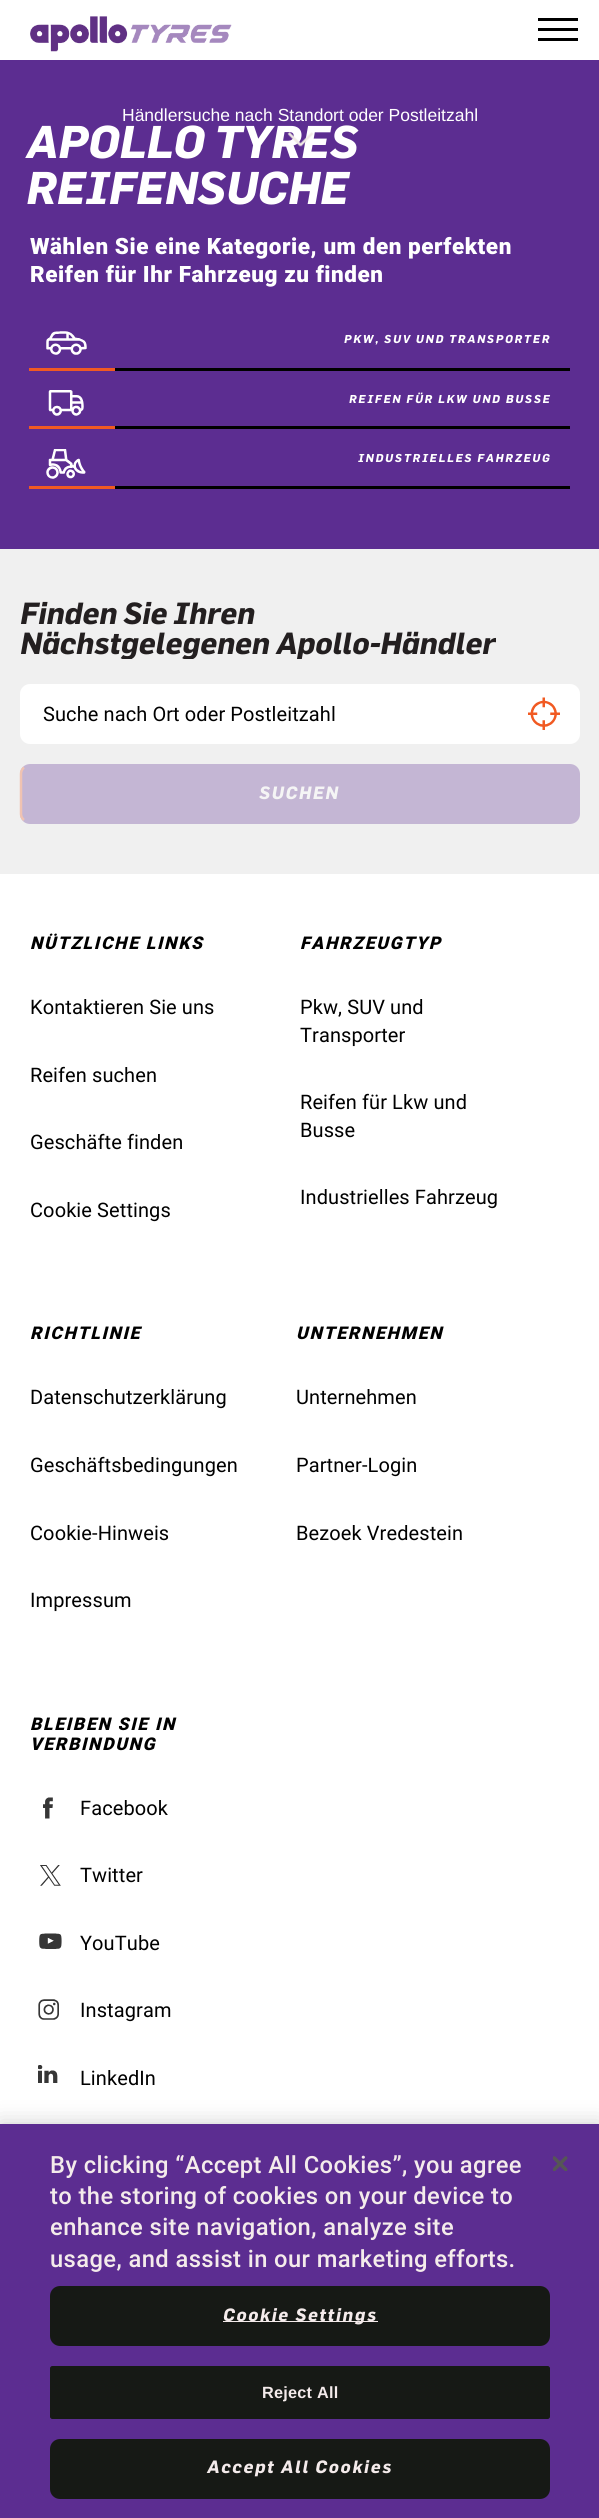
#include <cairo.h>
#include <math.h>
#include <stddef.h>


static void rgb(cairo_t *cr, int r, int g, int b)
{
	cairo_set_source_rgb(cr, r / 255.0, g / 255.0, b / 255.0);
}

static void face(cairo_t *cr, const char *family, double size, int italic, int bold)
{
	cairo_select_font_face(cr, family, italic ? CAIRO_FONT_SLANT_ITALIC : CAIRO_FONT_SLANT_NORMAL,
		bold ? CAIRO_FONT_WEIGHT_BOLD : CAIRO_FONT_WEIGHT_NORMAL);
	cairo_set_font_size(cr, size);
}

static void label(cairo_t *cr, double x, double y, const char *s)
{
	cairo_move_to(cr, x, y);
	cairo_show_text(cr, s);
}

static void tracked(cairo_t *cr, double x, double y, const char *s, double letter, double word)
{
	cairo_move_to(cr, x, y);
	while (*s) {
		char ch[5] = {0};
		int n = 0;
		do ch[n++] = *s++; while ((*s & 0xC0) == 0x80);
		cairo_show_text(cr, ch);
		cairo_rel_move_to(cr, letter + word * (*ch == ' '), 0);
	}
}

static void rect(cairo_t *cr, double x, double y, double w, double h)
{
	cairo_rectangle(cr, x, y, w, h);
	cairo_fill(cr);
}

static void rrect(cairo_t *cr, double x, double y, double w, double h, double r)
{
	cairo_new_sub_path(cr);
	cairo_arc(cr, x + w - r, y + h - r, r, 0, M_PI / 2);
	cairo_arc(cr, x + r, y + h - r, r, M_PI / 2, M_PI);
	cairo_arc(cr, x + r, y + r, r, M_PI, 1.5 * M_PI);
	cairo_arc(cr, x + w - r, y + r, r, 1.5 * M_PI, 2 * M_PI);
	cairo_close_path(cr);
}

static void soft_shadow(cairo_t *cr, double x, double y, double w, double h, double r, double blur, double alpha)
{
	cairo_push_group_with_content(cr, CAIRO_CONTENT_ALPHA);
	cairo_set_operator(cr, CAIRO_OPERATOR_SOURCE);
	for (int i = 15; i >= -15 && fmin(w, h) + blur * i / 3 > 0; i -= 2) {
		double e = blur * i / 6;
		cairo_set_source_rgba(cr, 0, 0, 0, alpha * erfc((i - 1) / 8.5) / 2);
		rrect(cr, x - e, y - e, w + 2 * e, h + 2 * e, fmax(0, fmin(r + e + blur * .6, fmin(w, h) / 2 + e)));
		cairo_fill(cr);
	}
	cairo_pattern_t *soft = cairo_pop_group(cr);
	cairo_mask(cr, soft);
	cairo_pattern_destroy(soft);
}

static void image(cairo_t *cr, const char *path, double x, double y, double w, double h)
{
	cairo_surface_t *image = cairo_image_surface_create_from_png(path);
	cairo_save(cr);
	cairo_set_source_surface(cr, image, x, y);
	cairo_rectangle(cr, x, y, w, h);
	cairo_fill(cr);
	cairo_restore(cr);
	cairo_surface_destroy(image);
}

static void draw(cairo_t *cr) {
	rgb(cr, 92, 45, 145);
	cairo_paint(cr);
	rgb(cr, 255, 255, 255);
	rect(cr, 0, 0, 599, 60);
	image(cr, "image0.png", 30, 16, 202, 36);
	rgb(cr, 0, 0, 0);
	rect(cr, 538, 18, 40, 3);
	rect(cr, 538, 28, 40, 3);
	rect(cr, 538, 38, 40, 3);
	face(cr, "Liberation Sans", 17.5, 0, 0);
	rgb(cr, 255, 255, 255);
	label(cr, 122, 121, "Händlersuche nach Standort oder Postleitzahl");
	face(cr, "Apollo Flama", 45, 1, 1);
	label(cr, 26, 158, "APOLLO TYRES");
	image(cr, "image1.png", 287, 132, 27, 15);
	label(cr, 26, 204, "REIFENSUCHE");
	face(cr, "Roboto Black", 22.5, 0, 0);
	tracked(cr, 30, 254, "Wählen Sie eine Kategorie, um den perfekten", 0.55, 0);
	tracked(cr, 30, 282, "Reifen für Ihr Fahrzeug zu finden", 0.55, 0);
	rgb(cr, 0, 0, 0);
	rect(cr, 115, 368, 455, 3);
	image(cr, "image2.png", 46, 331, 41, 24);
	face(cr, "Apollo Flama", 11.25, 1, 1);
	rgb(cr, 255, 255, 255);
	tracked(cr, 344, 343, "PKW, SUV UND TRANSPORTER", 1.75, 0);
	rgb(cr, 241, 90, 34);
	rect(cr, 29, 368, 86, 3);
	rgb(cr, 0, 0, 0);
	rect(cr, 115, 426, 455, 3);
	image(cr, "image3.png", 48, 390, 36, 26);
	rgb(cr, 255, 255, 255);
	tracked(cr, 349, 403, "REIFEN FÜR LKW UND BUSSE", 1.75, 0);
	rgb(cr, 241, 90, 34);
	rect(cr, 29, 426, 86, 3);
	rgb(cr, 0, 0, 0);
	rect(cr, 115, 486, 455, 3);
	image(cr, "image4.png", 46, 449, 40, 30);
	rgb(cr, 255, 255, 255);
	tracked(cr, 358, 462, "INDUSTRIELLES FAHRZEUG", 1.75, 0);
	rgb(cr, 241, 90, 34);
	rect(cr, 29, 486, 86, 3);
	rgb(cr, 240, 240, 240);
	rect(cr, 0, 549, 599, 325);
	face(cr, "Apollo Flama", 30, 1, 1);
	rgb(cr, 35, 31, 32);
	label(cr, 20, 624, "Finden Sie Ihren");
	cairo_save(cr);
	cairo_rectangle(cr, 20, 599, 476, 60);
	cairo_clip(cr);
	label(cr, 20, 654, "Nächstgelegenen Apollo-Händler");
	cairo_restore(cr);
	rgb(cr, 255, 255, 255);
	rrect(cr, 20, 684, 560, 60, 10);
	cairo_fill(cr);
	face(cr, "Roboto", 20, 0, 0);
	rgb(cr, 0, 0, 0);
	tracked(cr, 43, 721, "Suche nach Ort oder Postleitzahl", 0.1, 0);
	image(cr, "image5.png", 528, 697, 32, 33);
	rgb(cr, 196, 182, 212);
	rrect(cr, 20, 764, 560, 60, 10);
	cairo_fill(cr);
	cairo_new_path(cr);
	cairo_move_to(cr, 24, 820);
	cairo_curve_to(cr, 22, 818.5, 21, 816, 21, 814);
	cairo_line_to(cr, 21, 774);
	cairo_curve_to(cr, 21, 771.5, 22, 769, 24, 767.5);
	rgb(cr, 240, 195, 178);
	cairo_set_line_width(cr, 2.5);
	cairo_stroke(cr);
	face(cr, "Apollo Flama", 17.5, 1, 1);
	rgb(cr, 245, 245, 245);
	tracked(cr, 259, 799, "SUCHEN", 1.5, 0);
	rgb(cr, 255, 255, 255);
	rect(cr, 0, 874, 599, 1250);
	face(cr, "Roboto Black", 17.5, 1, 0);
	rgb(cr, 0, 0, 0);
	tracked(cr, 30, 949, "NÜTZLICHE LINKS", 1.75, 0);
	face(cr, "Roboto", 20, 0, 0);
	tracked(cr, 30, 1014, "Kontaktieren Sie uns", 0.1, 0);
	tracked(cr, 30, 1082, "Reifen suchen", 0.1, 0);
	tracked(cr, 30, 1149, "Geschäfte finden", 0.1, 0);
	tracked(cr, 30, 1217, "Cookie Settings", 0.1, 0);
	face(cr, "Roboto Black", 17.5, 1, 0);
	tracked(cr, 300, 949, "FAHRZEUGTYP", 1.75, 0);
	face(cr, "Roboto", 20, 0, 0);
	tracked(cr, 300, 1014, "Pkw, SUV und", 0.1, 0);
	tracked(cr, 300, 1042, "Transporter", 0.1, 0);
	tracked(cr, 300, 1109, "Reifen für Lkw und", 0.1, 0);
	tracked(cr, 300, 1137, "Busse", 0.1, 0);
	tracked(cr, 300, 1204, "Industrielles Fahrzeug", 0.1, 0);
	face(cr, "Roboto Black", 17.5, 1, 0);
	tracked(cr, 30, 1339, "RICHTLINIE", 1.75, 0);
	face(cr, "Roboto", 20, 0, 0);
	tracked(cr, 30, 1404, "Datenschutzerklärung", 0.1, 0);
	tracked(cr, 30, 1472, "Geschäftsbedingungen", 0.1, 0);
	tracked(cr, 30, 1540, "Cookie-Hinweis", 0.1, 0);
	tracked(cr, 30, 1607, "Impressum", 0.1, 0);
	face(cr, "Roboto Black", 17.5, 1, 0);
	tracked(cr, 296, 1339, "UNTERNEHMEN", 1.75, 0);
	face(cr, "Roboto", 20, 0, 0);
	tracked(cr, 296, 1404, "Unternehmen", 0.1, 0);
	tracked(cr, 296, 1472, "Partner-Login", 0.1, 0);
	tracked(cr, 296, 1540, "Bezoek Vredestein", 0.1, 0);
	face(cr, "Roboto Black", 17.5, 1, 0);
	tracked(cr, 30, 1730, "BLEIBEN SIE IN", 1.75, 0);
	tracked(cr, 30, 1750, "VERBINDUNG", 1.75, 0);
	image(cr, "image6.png", 43, 1797, 10, 22);
	face(cr, "Roboto", 20, 0, 0);
	tracked(cr, 80, 1815, "Facebook", 0.1, 0);
	image(cr, "image7.png", 40, 1865, 21, 21);
	tracked(cr, 80, 1882, "Twitter", 0.1, 0);
	image(cr, "image8.png", 39, 1933, 23, 16);
	tracked(cr, 80, 1950, "YouTube", 0.1, 0);
	image(cr, "image9.png", 38, 1999, 21, 21);
	tracked(cr, 80, 2017, "Instagram", 0.1, 0);
	image(cr, "image10.png", 38, 2065, 20, 18);
	tracked(cr, 80, 2085, "LinkedIn", 0.1, 0);
	rgb(cr, 0, 0, 0);
	soft_shadow(cr, 0, 2124, 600, 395, 0, 11, 0.2);
	rgb(cr, 92, 45, 145);
	rect(cr, 0, 2124, 599, 394);
	face(cr, "Roboto Medium", 23.75, 0, 0);
	rgb(cr, 244, 235, 235);
	tracked(cr, 50, 2173, "By clicking “Accept All Cookies”, you agree", 0.4, 0);
	tracked(cr, 50, 2204, "to the storing of cookies on your device to", 0.4, 0);
	tracked(cr, 50, 2235, "enhance site navigation, analyze site", 0.4, 0);
	tracked(cr, 50, 2267, "usage, and assist in our marketing efforts.", 0.4, 0);
	rgb(cr, 22, 25, 21);
	rrect(cr, 50, 2286, 500, 60, 10);
	cairo_fill(cr);
	rgb(cr, 244, 235, 235);
	rect(cr, 223, 2321, 155, 1);
	face(cr, "Apollo Flama", 17.5, 1, 1);
	tracked(cr, 223, 2321, "Cookie Settings", 1.75, 0);
	rgb(cr, 22, 25, 21);
	rrect(cr, 50.5, 2366.5, 499, 52, 2);
	cairo_fill_preserve(cr);
	cairo_set_line_width(cr, 1);
	cairo_stroke(cr);
	face(cr, "Liberation Sans", 16.25, 0, 1);
	rgb(cr, 244, 235, 235);
	tracked(cr, 262, 2398, "Reject All", 0.25, 0);
	rgb(cr, 22, 25, 21);
	rrect(cr, 50, 2439, 500, 60, 10);
	cairo_fill(cr);
	face(cr, "Apollo Flama", 17.5, 1, 1);
	rgb(cr, 244, 235, 235);
	tracked(cr, 207, 2473, "Accept All Cookies", 1.75, 0);
	image(cr, "image11.png", 553, 2156, 15, 15);
}

int main(void) {
	cairo_surface_t *surface = cairo_image_surface_create(CAIRO_FORMAT_RGB24, 599, 2518);
	cairo_t *cr = cairo_create(surface);
	cairo_font_options_t *options = cairo_font_options_create();
	cairo_font_options_set_hint_metrics(options, CAIRO_HINT_METRICS_OFF);
	cairo_font_options_set_hint_style(options, CAIRO_HINT_STYLE_NONE);
	cairo_set_font_options(cr, options);
	cairo_set_miter_limit(cr, 4);
	draw(cr);
	cairo_surface_write_to_png(surface, "render.png");
	cairo_font_options_destroy(options);
	cairo_destroy(cr);
	cairo_surface_destroy(surface);
	return 0;
}
